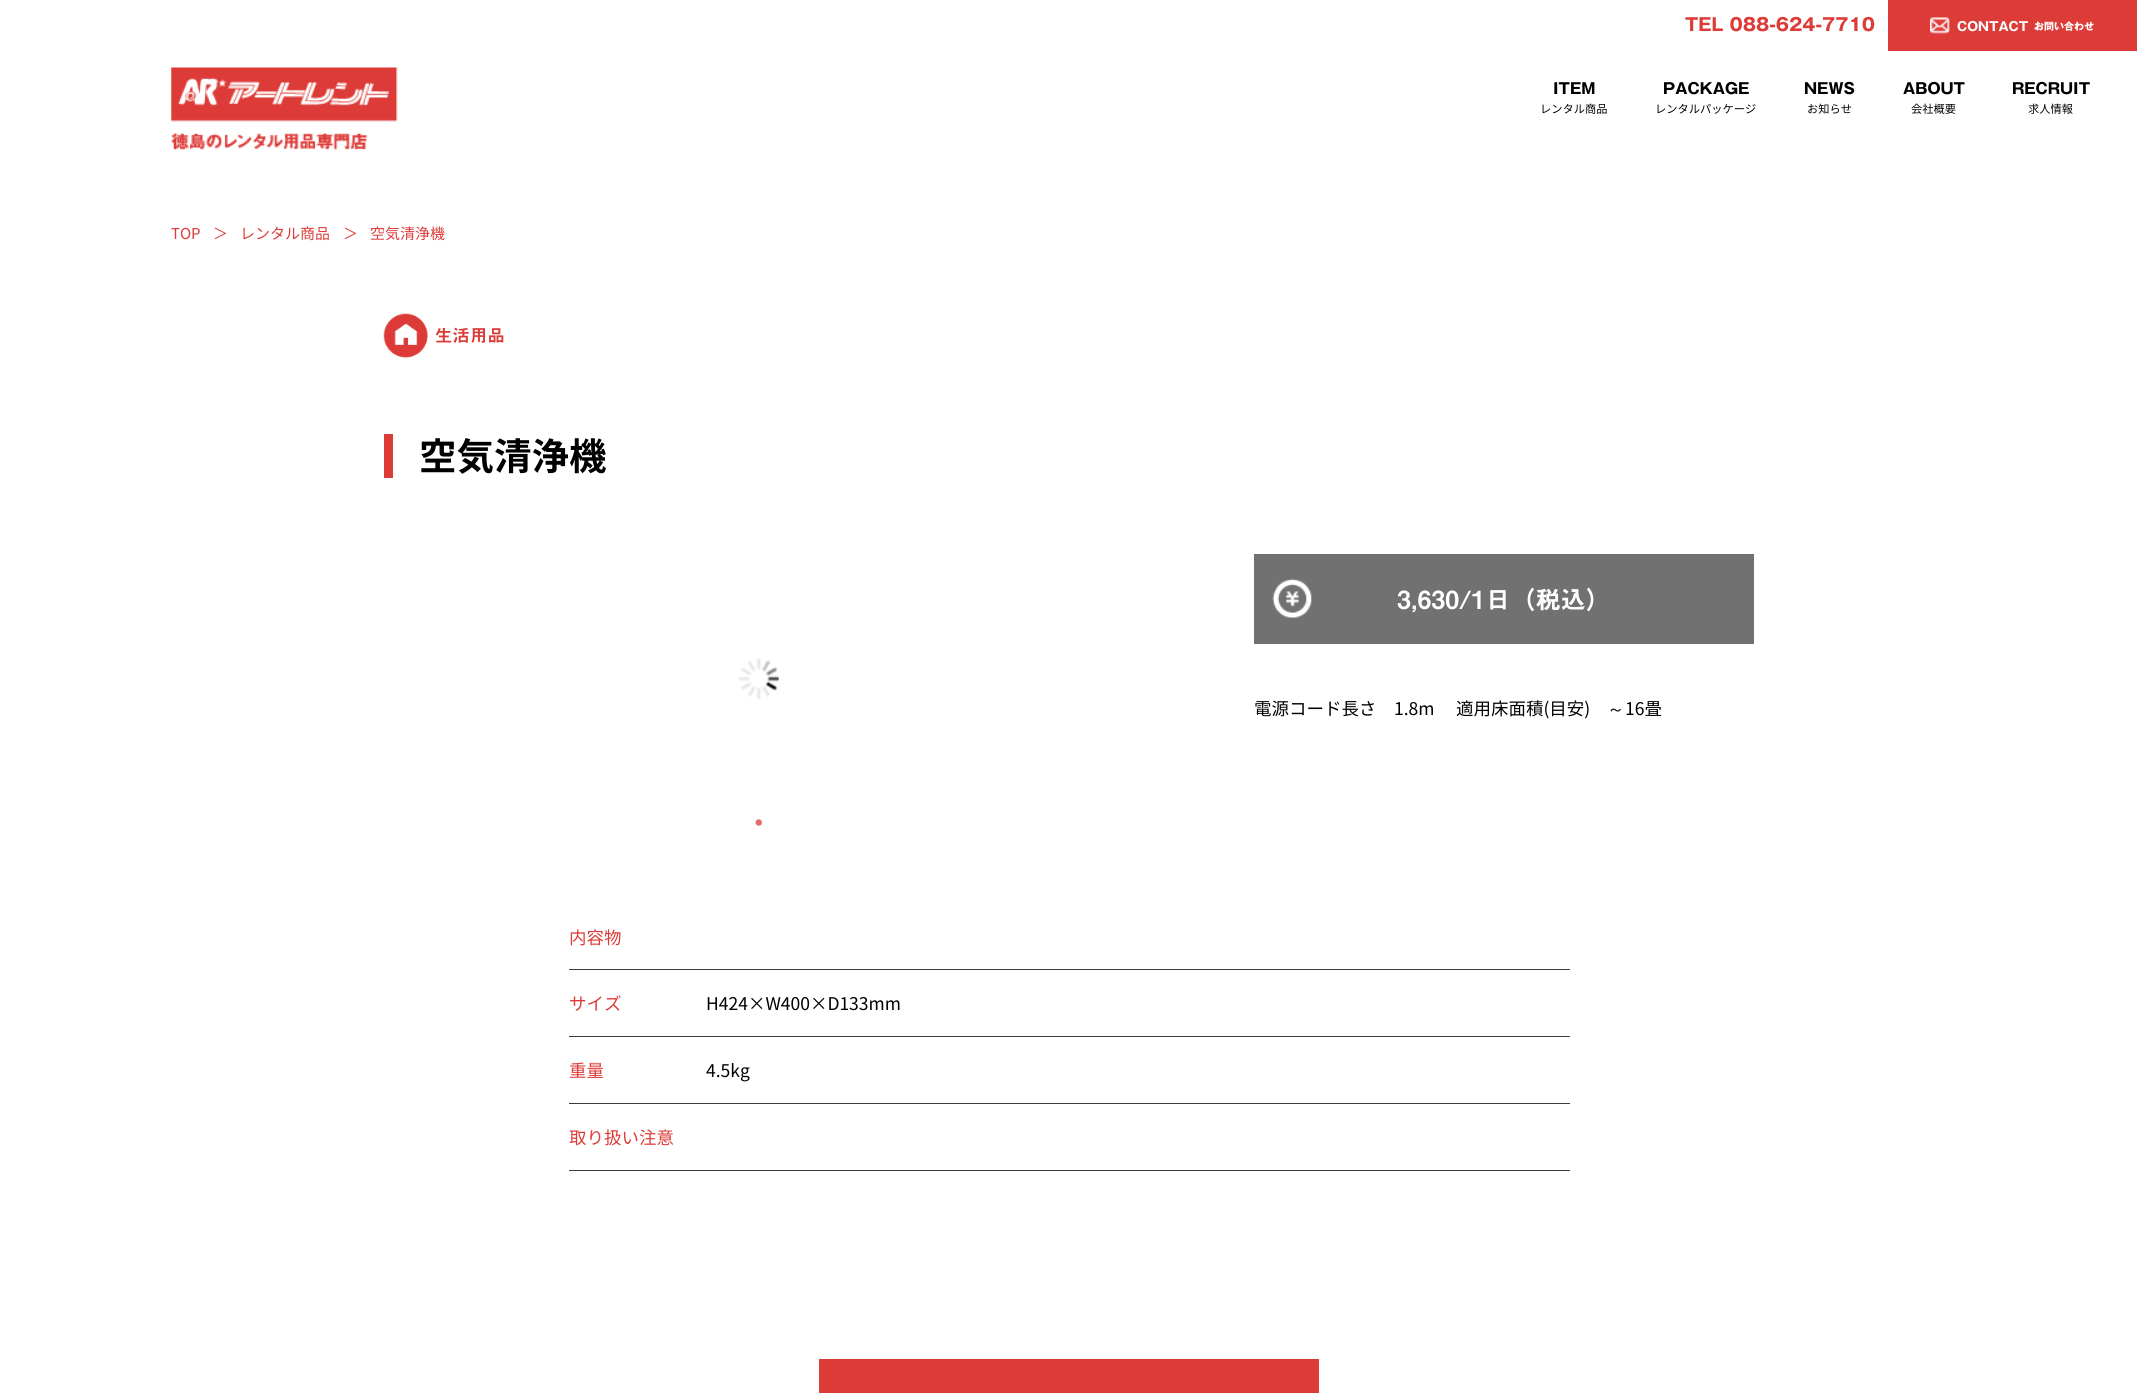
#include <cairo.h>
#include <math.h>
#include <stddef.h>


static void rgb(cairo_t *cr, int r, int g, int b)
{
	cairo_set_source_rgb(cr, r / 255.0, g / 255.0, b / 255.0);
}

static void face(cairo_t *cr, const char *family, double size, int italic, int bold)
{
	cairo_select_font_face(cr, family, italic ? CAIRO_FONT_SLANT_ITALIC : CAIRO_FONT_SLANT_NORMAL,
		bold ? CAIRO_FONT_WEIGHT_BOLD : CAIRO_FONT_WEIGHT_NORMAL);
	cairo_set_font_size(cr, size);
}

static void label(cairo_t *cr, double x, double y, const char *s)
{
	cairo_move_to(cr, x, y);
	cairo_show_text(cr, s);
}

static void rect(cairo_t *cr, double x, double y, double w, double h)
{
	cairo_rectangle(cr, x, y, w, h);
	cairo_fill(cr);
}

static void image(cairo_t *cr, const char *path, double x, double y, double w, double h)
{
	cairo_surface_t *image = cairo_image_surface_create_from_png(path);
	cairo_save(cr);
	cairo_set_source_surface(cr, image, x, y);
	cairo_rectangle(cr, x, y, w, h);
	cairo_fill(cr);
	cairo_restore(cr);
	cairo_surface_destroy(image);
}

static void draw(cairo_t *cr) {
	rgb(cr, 255, 255, 255);
	cairo_paint(cr);
	image(cr, "image0.png", 171, 67, 227, 83);
	face(cr, "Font", 17.5, 0, 1);
	rgb(cr, 221, 59, 56);
	label(cr, 1685, 31, "TEL 088-624-7710");
	rect(cr, 1888, 0, 249, 51);
	image(cr, "image1.png", 1930, 17, 20, 17);
	face(cr, "Font", 12.5, 0, 1);
	rgb(cr, 255, 255, 255);
	label(cr, 1957, 31, "CONTACT");
	face(cr, "Font", 10, 0, 1);
	label(cr, 2034, 30, "お問い合わせ");
	face(cr, "Font", 15, 0, 1);
	rgb(cr, 0, 0, 0);
	label(cr, 1553, 94, "ITEM");
	face(cr, "Noto Sans JP", 11.25, 0, 0);
	label(cr, 1540, 113, "レンタル商品");
	face(cr, "Font", 15, 0, 1);
	label(cr, 1663, 94, "PACKAGE");
	face(cr, "Noto Sans JP", 11.25, 0, 0);
	label(cr, 1655, 113, "レンタルパッケージ");
	face(cr, "Font", 15, 0, 1);
	label(cr, 1804, 94, "NEWS");
	face(cr, "Noto Sans JP", 11.25, 0, 0);
	label(cr, 1807, 113, "お知らせ");
	face(cr, "Font", 15, 0, 1);
	label(cr, 1903, 94, "ABOUT");
	face(cr, "Noto Sans JP", 11.25, 0, 0);
	label(cr, 1911, 113, "会社概要");
	face(cr, "Font", 15, 0, 1);
	label(cr, 2012, 94, "RECRUIT");
	face(cr, "Noto Sans JP", 11.25, 0, 0);
	label(cr, 2028, 113, "求人情報");
	face(cr, "Noto Sans JP", 15, 0, 0);
	rgb(cr, 221, 59, 56);
	label(cr, 171, 239, "TOP");
	label(cr, 213, 239, "＞");
	label(cr, 240, 239, "レンタル商品");
	label(cr, 343, 239, "＞");
	label(cr, 370, 239, "空気清浄機");
	image(cr, "image2.png", 383, 313, 45, 45);
	face(cr, "Font SemiBold", 17.5, 0, 0);
	label(cr, 435, 342, "生活用品");
	rect(cr, 384, 434, 9, 44);
	face(cr, "Noto Sans JP", 37.5, 0, 1);
	rgb(cr, 0, 0, 0);
	label(cr, 419, 470, "空気清浄機");
	image(cr, "image3.png", 738, 658, 41, 41);
	image(cr, "image4.png", 755, 819, 7, 7);
	rgb(cr, 114, 113, 113);
	rect(cr, 1254, 554, 500, 90);
	image(cr, "image5.png", 1272, 578, 40, 40);
	face(cr, "Font SemiBold", 25, 0, 0);
	rgb(cr, 255, 255, 255);
	label(cr, 1397, 609, "3,630/1日（税込）");
	face(cr, "Noto Sans JP", 17.5, 0, 0);
	rgb(cr, 0, 0, 0);
	label(cr, 1254, 715, "電源コード長さ　1.8m 　適用床面積(目安)");
	face(cr, "WenQuanYi Zen Hei Medium", 17.5, 0, 0);
	label(cr, 1607, 715, "～");
	face(cr, "Noto Sans JP", 17.5, 0, 0);
	label(cr, 1625, 715, "16畳");
	rgb(cr, 62, 58, 57);
	rect(cr, 569, 969, 1001, 1);
	rgb(cr, 221, 59, 56);
	label(cr, 569, 944, "内容物");
	rgb(cr, 62, 58, 57);
	rect(cr, 569, 1036, 1001, 1);
	rgb(cr, 221, 59, 56);
	label(cr, 569, 1010, "サイズ");
	rgb(cr, 0, 0, 0);
	label(cr, 706, 1010, "H424×W400×D133mm");
	rgb(cr, 62, 58, 57);
	rect(cr, 569, 1103, 1001, 1);
	rgb(cr, 221, 59, 56);
	label(cr, 569, 1077, "重量");
	rgb(cr, 0, 0, 0);
	label(cr, 706, 1077, "4.5kg");
	rgb(cr, 62, 58, 57);
	rect(cr, 569, 1170, 1001, 1);
	rgb(cr, 221, 59, 56);
	label(cr, 569, 1144, "取り扱い注意");
	rect(cr, 819, 1359, 500, 34);
}

int main(void) {
	cairo_surface_t *surface = cairo_image_surface_create(CAIRO_FORMAT_RGB24, 2137, 1393);
	cairo_t *cr = cairo_create(surface);
	cairo_font_options_t *options = cairo_font_options_create();
	cairo_font_options_set_hint_metrics(options, CAIRO_HINT_METRICS_OFF);
	cairo_font_options_set_hint_style(options, CAIRO_HINT_STYLE_NONE);
	cairo_set_font_options(cr, options);
	cairo_set_miter_limit(cr, 4);
	draw(cr);
	cairo_surface_write_to_png(surface, "render.png");
	cairo_font_options_destroy(options);
	cairo_destroy(cr);
	cairo_surface_destroy(surface);
	return 0;
}
